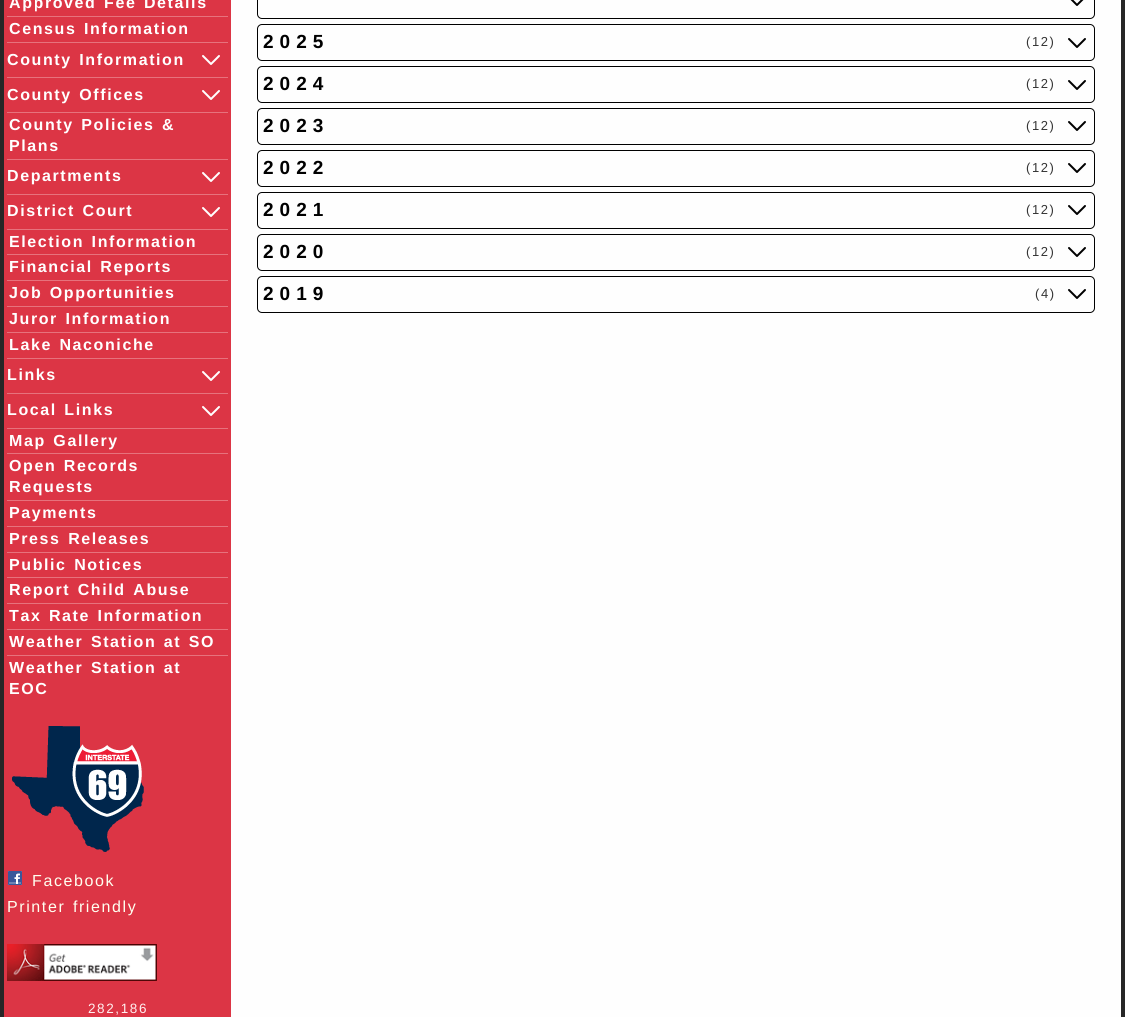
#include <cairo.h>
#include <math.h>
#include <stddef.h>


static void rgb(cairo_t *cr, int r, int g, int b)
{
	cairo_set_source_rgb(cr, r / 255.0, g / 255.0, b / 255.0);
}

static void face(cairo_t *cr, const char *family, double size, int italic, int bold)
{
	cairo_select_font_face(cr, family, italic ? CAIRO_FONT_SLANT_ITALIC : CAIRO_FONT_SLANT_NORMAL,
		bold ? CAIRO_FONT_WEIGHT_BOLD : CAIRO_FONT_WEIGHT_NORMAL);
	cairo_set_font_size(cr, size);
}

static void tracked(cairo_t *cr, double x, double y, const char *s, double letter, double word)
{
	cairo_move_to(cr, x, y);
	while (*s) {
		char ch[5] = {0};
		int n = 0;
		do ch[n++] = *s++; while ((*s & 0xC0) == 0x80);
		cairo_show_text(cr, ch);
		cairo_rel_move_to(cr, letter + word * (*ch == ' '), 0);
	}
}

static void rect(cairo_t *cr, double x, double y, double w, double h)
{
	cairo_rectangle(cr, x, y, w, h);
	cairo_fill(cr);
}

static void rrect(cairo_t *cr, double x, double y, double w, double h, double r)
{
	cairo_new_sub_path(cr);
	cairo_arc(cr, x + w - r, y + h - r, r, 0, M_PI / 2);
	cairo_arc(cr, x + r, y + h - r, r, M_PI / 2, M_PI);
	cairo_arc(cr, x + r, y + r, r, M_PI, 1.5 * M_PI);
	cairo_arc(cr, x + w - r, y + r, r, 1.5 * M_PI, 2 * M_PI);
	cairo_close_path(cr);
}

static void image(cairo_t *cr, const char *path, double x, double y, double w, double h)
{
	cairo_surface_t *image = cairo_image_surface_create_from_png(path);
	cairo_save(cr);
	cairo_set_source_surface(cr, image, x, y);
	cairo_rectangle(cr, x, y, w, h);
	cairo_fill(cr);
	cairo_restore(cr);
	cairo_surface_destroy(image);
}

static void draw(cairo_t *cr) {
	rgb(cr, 38, 38, 38);
	cairo_paint(cr);
	rgb(cr, 220, 53, 69);
	rect(cr, 4, 0, 227, 1017);
	face(cr, "Liberation Sans", 16, 0, 1);
	rgb(cr, 255, 255, 255);
	tracked(cr, 9, 8, "Approved Fee Details", 1.6, 1.5);
	rgb(cr, 231, 114, 125);
	rect(cr, 7, 16, 221, 1);
	rgb(cr, 255, 255, 255);
	tracked(cr, 9, 34, "Census Information", 1.6, 1.5);
	rgb(cr, 231, 114, 125);
	rect(cr, 7, 42, 221, 1);
	rgb(cr, 255, 255, 255);
	tracked(cr, 7, 65, "County Information", 1.6, 1.5);
	rgb(cr, 231, 114, 125);
	rect(cr, 7, 77, 221, 1);
	cairo_new_path(cr);
	cairo_move_to(cr, 203, 56);
	cairo_line_to(cr, 211, 64);
	cairo_line_to(cr, 219, 56);
	cairo_move_to(cr, 203, 91);
	cairo_line_to(cr, 211, 99);
	cairo_line_to(cr, 219, 91);
	rgb(cr, 255, 255, 255);
	cairo_set_line_cap(cr, CAIRO_LINE_CAP_ROUND);
	cairo_set_line_join(cr, CAIRO_LINE_JOIN_ROUND);
	cairo_stroke(cr);
	tracked(cr, 7, 100, "County Offices", 1.6, 1.5);
	rgb(cr, 231, 114, 125);
	rect(cr, 7, 112, 221, 1);
	rgb(cr, 255, 255, 255);
	tracked(cr, 9, 130, "County Policies &", 1.6, 1.5);
	tracked(cr, 9, 151, "Plans", 1.6, 0);
	rgb(cr, 231, 114, 125);
	rect(cr, 7, 159, 221, 1);
	rgb(cr, 255, 255, 255);
	tracked(cr, 7, 181, "Departments", 1.6, 0);
	rgb(cr, 231, 114, 125);
	rect(cr, 7, 194, 221, 1);
	cairo_new_path(cr);
	cairo_move_to(cr, 203, 173);
	cairo_line_to(cr, 211, 181);
	cairo_line_to(cr, 219, 173);
	cairo_move_to(cr, 203, 208);
	cairo_line_to(cr, 211, 216);
	cairo_line_to(cr, 219, 208);
	rgb(cr, 255, 255, 255);
	cairo_stroke(cr);
	tracked(cr, 7, 216, "District Court", 1.6, 1.5);
	rgb(cr, 231, 114, 125);
	rect(cr, 7, 229, 221, 1);
	rgb(cr, 255, 255, 255);
	tracked(cr, 9, 247, "Election Information", 1.6, 1.5);
	rgb(cr, 231, 114, 125);
	rect(cr, 7, 254, 221, 1);
	rgb(cr, 255, 255, 255);
	tracked(cr, 9, 272, "Financial Reports", 1.6, 1.5);
	rgb(cr, 231, 114, 125);
	rect(cr, 7, 280, 221, 1);
	rgb(cr, 255, 255, 255);
	tracked(cr, 9, 298, "Job Opportunities", 1.6, 1.5);
	rgb(cr, 231, 114, 125);
	rect(cr, 7, 306, 221, 1);
	rgb(cr, 255, 255, 255);
	tracked(cr, 9, 324, "Juror Information", 1.6, 1.5);
	rgb(cr, 231, 114, 125);
	rect(cr, 7, 332, 221, 1);
	rgb(cr, 255, 255, 255);
	tracked(cr, 9, 350, "Lake Naconiche", 1.6, 1.5);
	rgb(cr, 231, 114, 125);
	rect(cr, 7, 358, 221, 1);
	rgb(cr, 255, 255, 255);
	tracked(cr, 7, 380, "Links", 1.6, 0);
	rgb(cr, 231, 114, 125);
	rect(cr, 7, 393, 221, 1);
	cairo_new_path(cr);
	cairo_move_to(cr, 203, 372);
	cairo_line_to(cr, 211, 380);
	cairo_line_to(cr, 219, 372);
	cairo_move_to(cr, 203, 407);
	cairo_line_to(cr, 211, 415);
	cairo_line_to(cr, 219, 407);
	rgb(cr, 255, 255, 255);
	cairo_stroke(cr);
	tracked(cr, 7, 415, "Local Links", 1.6, 1.5);
	rgb(cr, 231, 114, 125);
	rect(cr, 7, 428, 221, 1);
	rgb(cr, 255, 255, 255);
	tracked(cr, 9, 446, "Map Gallery", 1.6, 1.5);
	rgb(cr, 231, 114, 125);
	rect(cr, 7, 453, 221, 1);
	rgb(cr, 255, 255, 255);
	tracked(cr, 9, 471, "Open Records", 1.6, 1.5);
	tracked(cr, 9, 492, "Requests", 1.6, 0);
	rgb(cr, 231, 114, 125);
	rect(cr, 7, 500, 221, 1);
	rgb(cr, 255, 255, 255);
	tracked(cr, 9, 518, "Payments", 1.6, 0);
	rgb(cr, 231, 114, 125);
	rect(cr, 7, 526, 221, 1);
	rgb(cr, 255, 255, 255);
	tracked(cr, 9, 544, "Press Releases", 1.6, 1.5);
	rgb(cr, 231, 114, 125);
	rect(cr, 7, 552, 221, 1);
	rgb(cr, 255, 255, 255);
	tracked(cr, 9, 570, "Public Notices", 1.6, 1.5);
	rgb(cr, 231, 114, 125);
	rect(cr, 7, 577, 221, 1);
	rgb(cr, 255, 255, 255);
	tracked(cr, 9, 595, "Report Child Abuse", 1.6, 1.5);
	rgb(cr, 231, 114, 125);
	rect(cr, 7, 603, 221, 1);
	rgb(cr, 255, 255, 255);
	tracked(cr, 9, 621, "Tax Rate Information", 1.6, 1.5);
	rgb(cr, 231, 114, 125);
	rect(cr, 7, 629, 221, 1);
	rgb(cr, 255, 255, 255);
	tracked(cr, 9, 647, "Weather Station at SO", 1.6, 1.5);
	rgb(cr, 231, 114, 125);
	rect(cr, 7, 655, 221, 1);
	rgb(cr, 255, 255, 255);
	tracked(cr, 9, 673, "Weather Station at", 1.6, 1.5);
	tracked(cr, 9, 694, "EOC", 1.6, 0);
	image(cr, "image0.png", 12, 726, 132, 126);
	image(cr, "image1.png", 8, 871, 14, 14);
	face(cr, "Liberation Sans", 16, 0, 0);
	rgb(cr, 255, 255, 240);
	tracked(cr, 32, 886, "Facebook", 1.6, 0);
	tracked(cr, 7, 912, "Printer friendly", 1.6, 1.5);
	image(cr, "image2.png", 7, 944, 150, 37);
	face(cr, "Liberation Sans", 13.5, 0, 0);
	rgb(cr, 255, 240, 240);
	tracked(cr, 88, 1013, "282,186", 1.6, 0);
	rgb(cr, 254, 254, 254);
	rect(cr, 231, 0, 890, 1017);
	rrect(cr, 257.5, -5.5, 837, 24, 4.5);
	rgb(cr, 0, 0, 0);
	cairo_set_line_width(cr, 1);
	cairo_set_line_cap(cr, CAIRO_LINE_CAP_BUTT);
	cairo_set_line_join(cr, CAIRO_LINE_JOIN_MITER);
	cairo_stroke(cr);
	rrect(cr, 257.5, 24.5, 837, 36, 4.5);
	cairo_stroke(cr);
	cairo_new_path(cr);
	cairo_move_to(cr, 1069, -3);
	cairo_line_to(cr, 1077, 5);
	cairo_line_to(cr, 1085, -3);
	cairo_move_to(cr, 1069, 39);
	cairo_line_to(cr, 1077, 47);
	cairo_line_to(cr, 1085, 39);
	cairo_set_line_width(cr, 2);
	cairo_set_line_cap(cr, CAIRO_LINE_CAP_ROUND);
	cairo_set_line_join(cr, CAIRO_LINE_JOIN_ROUND);
	cairo_stroke(cr);
	face(cr, "Liberation Sans", 19, 0, 1);
	tracked(cr, 263, 48, "2025", 6, 0);
	face(cr, "Liberation Sans", 13, 0, 0);
	rgb(cr, 51, 51, 51);
	tracked(cr, 1026, 46, "(12)", 1.6, 0);
	rrect(cr, 257.5, 66.5, 837, 36, 4.5);
	rgb(cr, 0, 0, 0);
	cairo_set_line_width(cr, 1);
	cairo_set_line_cap(cr, CAIRO_LINE_CAP_BUTT);
	cairo_set_line_join(cr, CAIRO_LINE_JOIN_MITER);
	cairo_stroke(cr);
	face(cr, "Liberation Sans", 19, 0, 1);
	tracked(cr, 263, 90, "2024", 6, 0);
	face(cr, "Liberation Sans", 13, 0, 0);
	rgb(cr, 51, 51, 51);
	tracked(cr, 1026, 88, "(12)", 1.6, 0);
	rrect(cr, 257.5, 108.5, 837, 36, 4.5);
	rgb(cr, 0, 0, 0);
	cairo_stroke(cr);
	cairo_new_path(cr);
	cairo_move_to(cr, 1069, 81);
	cairo_line_to(cr, 1077, 89);
	cairo_line_to(cr, 1085, 81);
	cairo_move_to(cr, 1069, 122);
	cairo_line_to(cr, 1077, 130);
	cairo_line_to(cr, 1085, 122);
	cairo_set_line_width(cr, 2);
	cairo_set_line_cap(cr, CAIRO_LINE_CAP_ROUND);
	cairo_set_line_join(cr, CAIRO_LINE_JOIN_ROUND);
	cairo_stroke(cr);
	face(cr, "Liberation Sans", 19, 0, 1);
	tracked(cr, 263, 132, "2023", 6, 0);
	face(cr, "Liberation Sans", 13, 0, 0);
	rgb(cr, 51, 51, 51);
	tracked(cr, 1026, 130, "(12)", 1.6, 0);
	rrect(cr, 257.5, 150.5, 837, 36, 4.5);
	rgb(cr, 0, 0, 0);
	cairo_set_line_width(cr, 1);
	cairo_set_line_cap(cr, CAIRO_LINE_CAP_BUTT);
	cairo_set_line_join(cr, CAIRO_LINE_JOIN_MITER);
	cairo_stroke(cr);
	face(cr, "Liberation Sans", 19, 0, 1);
	tracked(cr, 263, 174, "2022", 6, 0);
	face(cr, "Liberation Sans", 13, 0, 0);
	rgb(cr, 51, 51, 51);
	tracked(cr, 1026, 172, "(12)", 1.6, 0);
	rrect(cr, 257.5, 192.5, 837, 36, 4.5);
	rgb(cr, 0, 0, 0);
	cairo_stroke(cr);
	cairo_new_path(cr);
	cairo_move_to(cr, 1069, 164);
	cairo_line_to(cr, 1077, 172);
	cairo_line_to(cr, 1085, 164);
	cairo_move_to(cr, 1069, 206);
	cairo_line_to(cr, 1077, 214);
	cairo_line_to(cr, 1085, 206);
	cairo_set_line_width(cr, 2);
	cairo_set_line_cap(cr, CAIRO_LINE_CAP_ROUND);
	cairo_set_line_join(cr, CAIRO_LINE_JOIN_ROUND);
	cairo_stroke(cr);
	face(cr, "Liberation Sans", 19, 0, 1);
	tracked(cr, 263, 216, "2021", 6, 0);
	face(cr, "Liberation Sans", 13, 0, 0);
	rgb(cr, 51, 51, 51);
	tracked(cr, 1026, 214, "(12)", 1.6, 0);
	rrect(cr, 257.5, 234.5, 837, 36, 4.5);
	rgb(cr, 0, 0, 0);
	cairo_set_line_width(cr, 1);
	cairo_set_line_cap(cr, CAIRO_LINE_CAP_BUTT);
	cairo_set_line_join(cr, CAIRO_LINE_JOIN_MITER);
	cairo_stroke(cr);
	face(cr, "Liberation Sans", 19, 0, 1);
	tracked(cr, 263, 258, "2020", 6, 0);
	face(cr, "Liberation Sans", 13, 0, 0);
	rgb(cr, 51, 51, 51);
	tracked(cr, 1026, 256, "(12)", 1.6, 0);
	rrect(cr, 257.5, 276.5, 837, 36, 4.5);
	rgb(cr, 0, 0, 0);
	cairo_stroke(cr);
	cairo_new_path(cr);
	cairo_move_to(cr, 1069, 248);
	cairo_line_to(cr, 1077, 256);
	cairo_line_to(cr, 1085, 248);
	cairo_move_to(cr, 1069, 290);
	cairo_line_to(cr, 1077, 298);
	cairo_line_to(cr, 1085, 290);
	cairo_set_line_width(cr, 2);
	cairo_set_line_cap(cr, CAIRO_LINE_CAP_ROUND);
	cairo_set_line_join(cr, CAIRO_LINE_JOIN_ROUND);
	cairo_stroke(cr);
	face(cr, "Liberation Sans", 19, 0, 1);
	tracked(cr, 263, 300, "2019", 6, 0);
	face(cr, "Liberation Sans", 13, 0, 0);
	rgb(cr, 51, 51, 51);
	tracked(cr, 1035, 298, "(4)", 1.6, 0);
}

int main(void) {
	cairo_surface_t *surface = cairo_image_surface_create(CAIRO_FORMAT_RGB24, 1125, 1017);
	cairo_t *cr = cairo_create(surface);
	cairo_font_options_t *options = cairo_font_options_create();
	cairo_font_options_set_hint_metrics(options, CAIRO_HINT_METRICS_OFF);
	cairo_font_options_set_hint_style(options, CAIRO_HINT_STYLE_NONE);
	cairo_set_font_options(cr, options);
	cairo_set_miter_limit(cr, 4);
	draw(cr);
	cairo_surface_write_to_png(surface, "render.png");
	cairo_font_options_destroy(options);
	cairo_destroy(cr);
	cairo_surface_destroy(surface);
	return 0;
}
